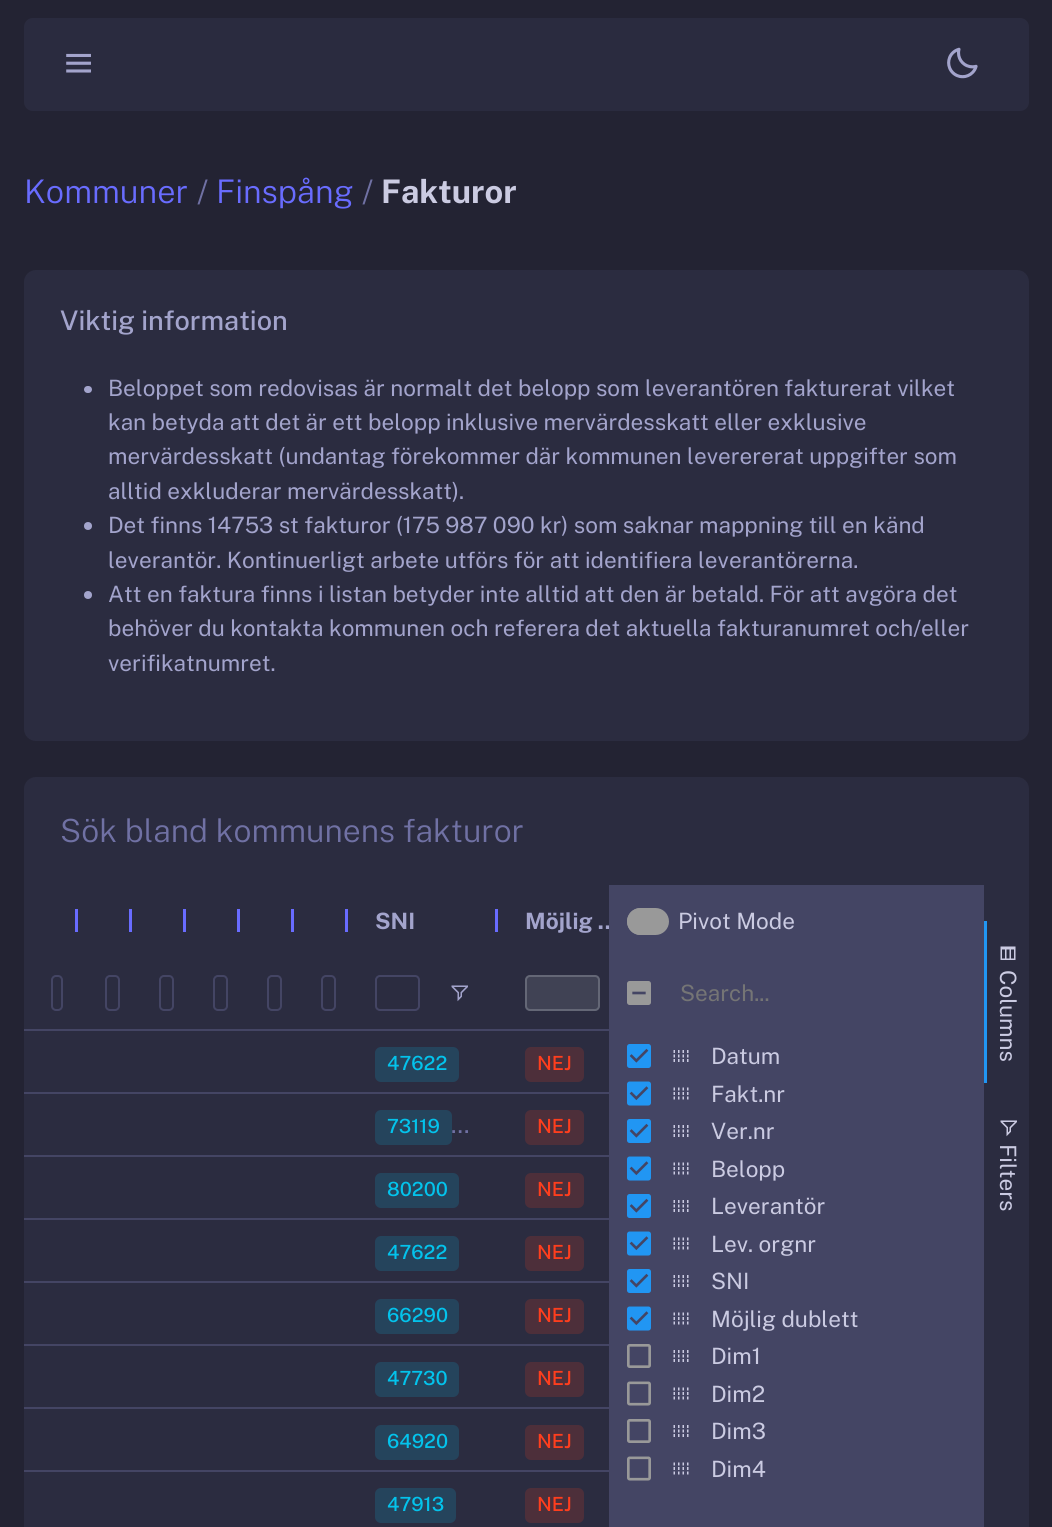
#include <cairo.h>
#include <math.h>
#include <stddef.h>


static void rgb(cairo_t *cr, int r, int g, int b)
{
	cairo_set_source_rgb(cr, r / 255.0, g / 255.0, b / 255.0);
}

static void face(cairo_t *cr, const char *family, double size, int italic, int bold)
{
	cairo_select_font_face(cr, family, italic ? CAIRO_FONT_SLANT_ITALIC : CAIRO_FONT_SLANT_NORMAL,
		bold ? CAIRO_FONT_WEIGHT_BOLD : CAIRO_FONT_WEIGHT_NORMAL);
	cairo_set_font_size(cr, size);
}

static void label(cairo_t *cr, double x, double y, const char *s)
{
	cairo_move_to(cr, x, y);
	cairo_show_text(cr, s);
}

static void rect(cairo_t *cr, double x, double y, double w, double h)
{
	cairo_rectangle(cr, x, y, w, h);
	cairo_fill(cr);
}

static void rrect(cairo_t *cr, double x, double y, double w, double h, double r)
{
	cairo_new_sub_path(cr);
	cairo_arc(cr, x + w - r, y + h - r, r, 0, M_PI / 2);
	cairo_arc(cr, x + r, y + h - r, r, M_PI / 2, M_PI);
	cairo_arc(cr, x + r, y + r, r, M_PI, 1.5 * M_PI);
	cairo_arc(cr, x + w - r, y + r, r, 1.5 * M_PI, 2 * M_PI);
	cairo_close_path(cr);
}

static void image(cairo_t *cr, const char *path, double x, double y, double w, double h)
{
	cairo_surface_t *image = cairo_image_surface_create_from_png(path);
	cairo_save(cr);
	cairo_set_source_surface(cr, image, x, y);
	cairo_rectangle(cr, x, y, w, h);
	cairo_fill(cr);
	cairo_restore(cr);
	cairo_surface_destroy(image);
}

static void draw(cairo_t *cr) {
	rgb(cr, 35, 35, 51);
	cairo_paint(cr);
	cairo_set_source_rgba(cr, 0.169, 0.173, 0.251, 0.96);
	rrect(cr, 24, 18, 1005, 93, 9);
	cairo_fill(cr);
	image(cr, "image0.png", 66, 53, 25, 20);
	image(cr, "image1.png", 947, 47, 31, 32);
	face(cr, "Public Sans Light", 32.5, 0, 0);
	rgb(cr, 105, 108, 255);
	label(cr, 24, 203, "Kommuner");
	rgb(cr, 112, 113, 164);
	label(cr, 197, 203, "/");
	rgb(cr, 105, 108, 255);
	label(cr, 216, 203, "Finspång");
	rgb(cr, 112, 113, 164);
	label(cr, 362, 203, "/");
	face(cr, "Public Sans", 32.5, 0, 1);
	rgb(cr, 203, 203, 226);
	label(cr, 381, 203, "Fakturor");
	rgb(cr, 43, 44, 64);
	rrect(cr, 24, 270, 1005, 471, 12);
	cairo_fill(cr);
	face(cr, "Public Sans Medium", 27, 0, 0);
	rgb(cr, 163, 164, 204);
	label(cr, 60, 330, "Viktig information");
	rrect(cr, 84, 386, 8, 7, 3.5);
	cairo_fill(cr);
	face(cr, "Public Sans", 22.5, 0, 0);
	label(cr, 108, 396, "Beloppet som redovisas är normalt det belopp som leverantören fakturerat vilket");
	label(cr, 108, 430, "kan betyda att det är ett belopp inklusive mervärdesskatt eller exklusive");
	label(cr, 108, 464, "mervärdesskatt (undantag förekommer där kommunen leverererat uppgifter som");
	label(cr, 108, 499, "alltid exkluderar mervärdesskatt).");
	cairo_new_path(cr);
	cairo_arc(cr, 88, 526, 4, 0, 2 * M_PI);
	cairo_fill(cr);
	label(cr, 108, 533, "Det finns 14753 st fakturor (175 987 090 kr) som saknar mappning till en känd");
	label(cr, 108, 568, "leverantör. Kontinuerligt arbete utförs för att identifiera leverantörerna.");
	cairo_new_path(cr);
	cairo_arc(cr, 88, 595, 4, 0, 2 * M_PI);
	cairo_fill(cr);
	label(cr, 108, 602, "Att en faktura finns i listan betyder inte alltid att den är betald. För att avgöra det");
	label(cr, 108, 636, "behöver du kontakta kommunen och referera det aktuella fakturanumret och/eller");
	label(cr, 108, 671, "verifikatnumret.");
	rgb(cr, 43, 44, 64);
	rrect(cr, 24, 777, 1005, 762, 12);
	cairo_fill(cr);
	face(cr, "Public Sans Light", 31.9, 0, 0);
	rgb(cr, 112, 113, 164);
	label(cr, 60, 842, "Sök bland kommunens fakturor");
	rgb(cr, 68, 69, 100);
	rect(cr, 24, 1029, 585, 2);
	rgb(cr, 105, 108, 255);
	rect(cr, 75, 909, 3, 23);
	rect(cr, 129, 909, 3, 23);
	rect(cr, 183, 909, 3, 23);
	rect(cr, 237, 909, 3, 23);
	rect(cr, 291, 909, 3, 23);
	rect(cr, 345, 909, 3, 23);
	face(cr, "Public Sans", 22.5, 0, 1);
	rgb(cr, 163, 164, 204);
	label(cr, 375, 929, "SNI");
	rgb(cr, 105, 108, 255);
	rect(cr, 495, 909, 3, 23);
	rgb(cr, 163, 164, 204);
	label(cr, 525, 929, "Möjlig …");
	rrect(cr, 52, 976, 10, 34, 4);
	rgb(cr, 68, 69, 100);
	cairo_stroke(cr);
	rrect(cr, 106, 976, 13, 34, 4);
	cairo_stroke(cr);
	rrect(cr, 160, 976, 13, 34, 4);
	cairo_stroke(cr);
	rrect(cr, 214, 976, 13, 34, 4);
	cairo_stroke(cr);
	rrect(cr, 268, 976, 13, 34, 4);
	cairo_stroke(cr);
	rrect(cr, 322, 976, 13, 34, 4);
	cairo_stroke(cr);
	rrect(cr, 376, 976, 43, 34, 4);
	cairo_stroke(cr);
	image(cr, "image2.png", 451, 985, 17, 17);
	rgb(cr, 64, 66, 84);
	rrect(cr, 525, 975, 75, 36, 5);
	cairo_fill(cr);
	rrect(cr, 526, 976, 73, 34, 4);
	cairo_set_source_rgba(cr, 0.729, 0.749, 0.78, 0.3);
	cairo_stroke(cr);
	rgb(cr, 68, 69, 100);
	rect(cr, 24, 1092, 585, 2);
	rgb(cr, 37, 68, 92);
	rrect(cr, 375, 1047, 84, 35, 6);
	cairo_fill(cr);
	face(cr, "Public Sans Medium", 19.5, 0, 0);
	rgb(cr, 3, 195, 236);
	label(cr, 387, 1070, "47622");
	rgb(cr, 77, 47, 58);
	rrect(cr, 525, 1047, 59, 35, 6);
	cairo_fill(cr);
	rgb(cr, 255, 62, 29);
	label(cr, 537, 1070, "NEJ");
	rgb(cr, 68, 69, 100);
	rect(cr, 24, 1155, 585, 2);
	rgb(cr, 37, 68, 92);
	rrect(cr, 375, 1110, 77, 35, 6);
	cairo_fill(cr);
	rgb(cr, 3, 195, 236);
	label(cr, 387, 1133, "73119");
	face(cr, "Public Sans", 24, 0, 0);
	rgb(cr, 112, 113, 164);
	label(cr, 451, 1133, "…");
	rgb(cr, 77, 47, 58);
	rrect(cr, 525, 1110, 59, 35, 6);
	cairo_fill(cr);
	face(cr, "Public Sans Medium", 19.5, 0, 0);
	rgb(cr, 255, 62, 29);
	label(cr, 537, 1133, "NEJ");
	rgb(cr, 68, 69, 100);
	rect(cr, 24, 1218, 585, 2);
	rgb(cr, 37, 68, 92);
	rrect(cr, 375, 1173, 84, 35, 6);
	cairo_fill(cr);
	rgb(cr, 3, 195, 236);
	label(cr, 387, 1196, "80200");
	rgb(cr, 77, 47, 58);
	rrect(cr, 525, 1173, 59, 35, 6);
	cairo_fill(cr);
	rgb(cr, 255, 62, 29);
	label(cr, 537, 1196, "NEJ");
	rgb(cr, 68, 69, 100);
	rect(cr, 24, 1281, 585, 2);
	rgb(cr, 37, 68, 92);
	rrect(cr, 375, 1236, 84, 35, 6);
	cairo_fill(cr);
	rgb(cr, 3, 195, 236);
	label(cr, 387, 1259, "47622");
	rgb(cr, 77, 47, 58);
	rrect(cr, 525, 1236, 59, 35, 6);
	cairo_fill(cr);
	rgb(cr, 255, 62, 29);
	label(cr, 537, 1259, "NEJ");
	rgb(cr, 68, 69, 100);
	rect(cr, 24, 1344, 585, 2);
	rgb(cr, 37, 68, 92);
	rrect(cr, 375, 1299, 84, 35, 6);
	cairo_fill(cr);
	rgb(cr, 3, 195, 236);
	label(cr, 387, 1322, "66290");
	rgb(cr, 77, 47, 58);
	rrect(cr, 525, 1299, 59, 35, 6);
	cairo_fill(cr);
	rgb(cr, 255, 62, 29);
	label(cr, 537, 1322, "NEJ");
	rgb(cr, 68, 69, 100);
	rect(cr, 24, 1407, 585, 2);
	rgb(cr, 37, 68, 92);
	rrect(cr, 375, 1362, 84, 35, 6);
	cairo_fill(cr);
	rgb(cr, 3, 195, 236);
	label(cr, 387, 1385, "47730");
	rgb(cr, 77, 47, 58);
	rrect(cr, 525, 1362, 59, 35, 6);
	cairo_fill(cr);
	rgb(cr, 255, 62, 29);
	label(cr, 537, 1385, "NEJ");
	rgb(cr, 68, 69, 100);
	rect(cr, 24, 1470, 585, 2);
	rgb(cr, 37, 68, 92);
	rrect(cr, 375, 1425, 84, 35, 6);
	cairo_fill(cr);
	rgb(cr, 3, 195, 236);
	label(cr, 387, 1448, "64920");
	rgb(cr, 77, 47, 58);
	rrect(cr, 525, 1425, 59, 35, 6);
	cairo_fill(cr);
	rgb(cr, 255, 62, 29);
	label(cr, 537, 1448, "NEJ");
	rgb(cr, 37, 68, 92);
	rrect(cr, 375, 1488, 81, 35, 6);
	cairo_fill(cr);
	rgb(cr, 3, 195, 236);
	label(cr, 387, 1511, "47913");
	rgb(cr, 77, 47, 58);
	rrect(cr, 525, 1488, 59, 35, 6);
	cairo_fill(cr);
	rgb(cr, 255, 62, 29);
	label(cr, 537, 1511, "NEJ");
	rgb(cr, 68, 69, 100);
	rect(cr, 609, 885, 375, 642);
	rgb(cr, 153, 153, 153);
	rrect(cr, 628, 909, 40, 25, 12.5);
	cairo_fill_preserve(cr);
	cairo_stroke(cr);
	cairo_arc(cr, 640.5, 921.5, 12.5, 0, 2 * M_PI);
	cairo_stroke(cr);
	face(cr, "Public Sans", 22.5, 0, 0);
	rgb(cr, 203, 203, 226);
	label(cr, 678, 929, "Pivot Mode");
	image(cr, "image3.png", 627, 981, 24, 24);
	rgb(cr, 117, 117, 117);
	label(cr, 680, 1001, "Search...");
	image(cr, "image4.png", 627, 1044, 24, 24);
	image(cr, "image5.png", 673, 1050, 16, 12);
	rgb(cr, 203, 203, 226);
	label(cr, 711, 1064, "Datum");
	image(cr, "image6.png", 627, 1081, 24, 25);
	image(cr, "image7.png", 673, 1087, 16, 13);
	label(cr, 711, 1102, "Fakt.nr");
	image(cr, "image4.png", 627, 1119, 24, 24);
	image(cr, "image5.png", 673, 1125, 16, 12);
	label(cr, 711, 1139, "Ver.nr");
	image(cr, "image6.png", 627, 1156, 24, 25);
	image(cr, "image7.png", 673, 1162, 16, 13);
	label(cr, 711, 1177, "Belopp");
	image(cr, "image4.png", 627, 1194, 24, 24);
	image(cr, "image5.png", 673, 1200, 16, 12);
	label(cr, 711, 1214, "Leverantör");
	image(cr, "image6.png", 627, 1231, 24, 25);
	image(cr, "image7.png", 673, 1237, 16, 13);
	label(cr, 711, 1252, "Lev. orgnr");
	image(cr, "image4.png", 627, 1269, 24, 24);
	image(cr, "image5.png", 673, 1275, 16, 12);
	label(cr, 711, 1289, "SNI");
	image(cr, "image6.png", 627, 1306, 24, 25);
	image(cr, "image7.png", 673, 1312, 16, 13);
	label(cr, 711, 1327, "Möjlig dublett");
	image(cr, "image8.png", 627, 1344, 24, 24);
	image(cr, "image5.png", 673, 1350, 16, 12);
	label(cr, 711, 1364, "Dim1");
	image(cr, "image9.png", 627, 1381, 24, 25);
	image(cr, "image7.png", 673, 1387, 16, 13);
	label(cr, 711, 1402, "Dim2");
	image(cr, "image8.png", 627, 1419, 24, 24);
	image(cr, "image5.png", 673, 1425, 16, 12);
	label(cr, 711, 1439, "Dim3");
	image(cr, "image9.png", 627, 1456, 24, 25);
	image(cr, "image7.png", 673, 1462, 16, 13);
	label(cr, 711, 1477, "Dim4");
	rgb(cr, 33, 150, 243);
	rect(cr, 984, 921, 3, 162);
	image(cr, "image10.png", 1000, 946, 16, 14);
	rgb(cr, 203, 203, 226);
	cairo_save(cr);
	cairo_translate(cr, 1000, 970);
	cairo_rotate(cr, 90 * M_PI / 180);
	label(cr, 0, 0, "Columns");
	cairo_restore(cr);
	image(cr, "image11.png", 1000, 1120, 17, 17);
	cairo_save(cr);
	cairo_translate(cr, 1000, 1144);
	cairo_rotate(cr, 90 * M_PI / 180);
	label(cr, 0, 0, "Filters");
	cairo_restore(cr);
}

int main(void) {
	cairo_surface_t *surface = cairo_image_surface_create(CAIRO_FORMAT_RGB24, 1052, 1527);
	cairo_t *cr = cairo_create(surface);
	cairo_font_options_t *options = cairo_font_options_create();
	cairo_font_options_set_hint_metrics(options, CAIRO_HINT_METRICS_OFF);
	cairo_font_options_set_hint_style(options, CAIRO_HINT_STYLE_NONE);
	cairo_set_font_options(cr, options);
	cairo_set_miter_limit(cr, 4);
	draw(cr);
	cairo_surface_write_to_png(surface, "render.png");
	cairo_font_options_destroy(options);
	cairo_destroy(cr);
	cairo_surface_destroy(surface);
	return 0;
}
